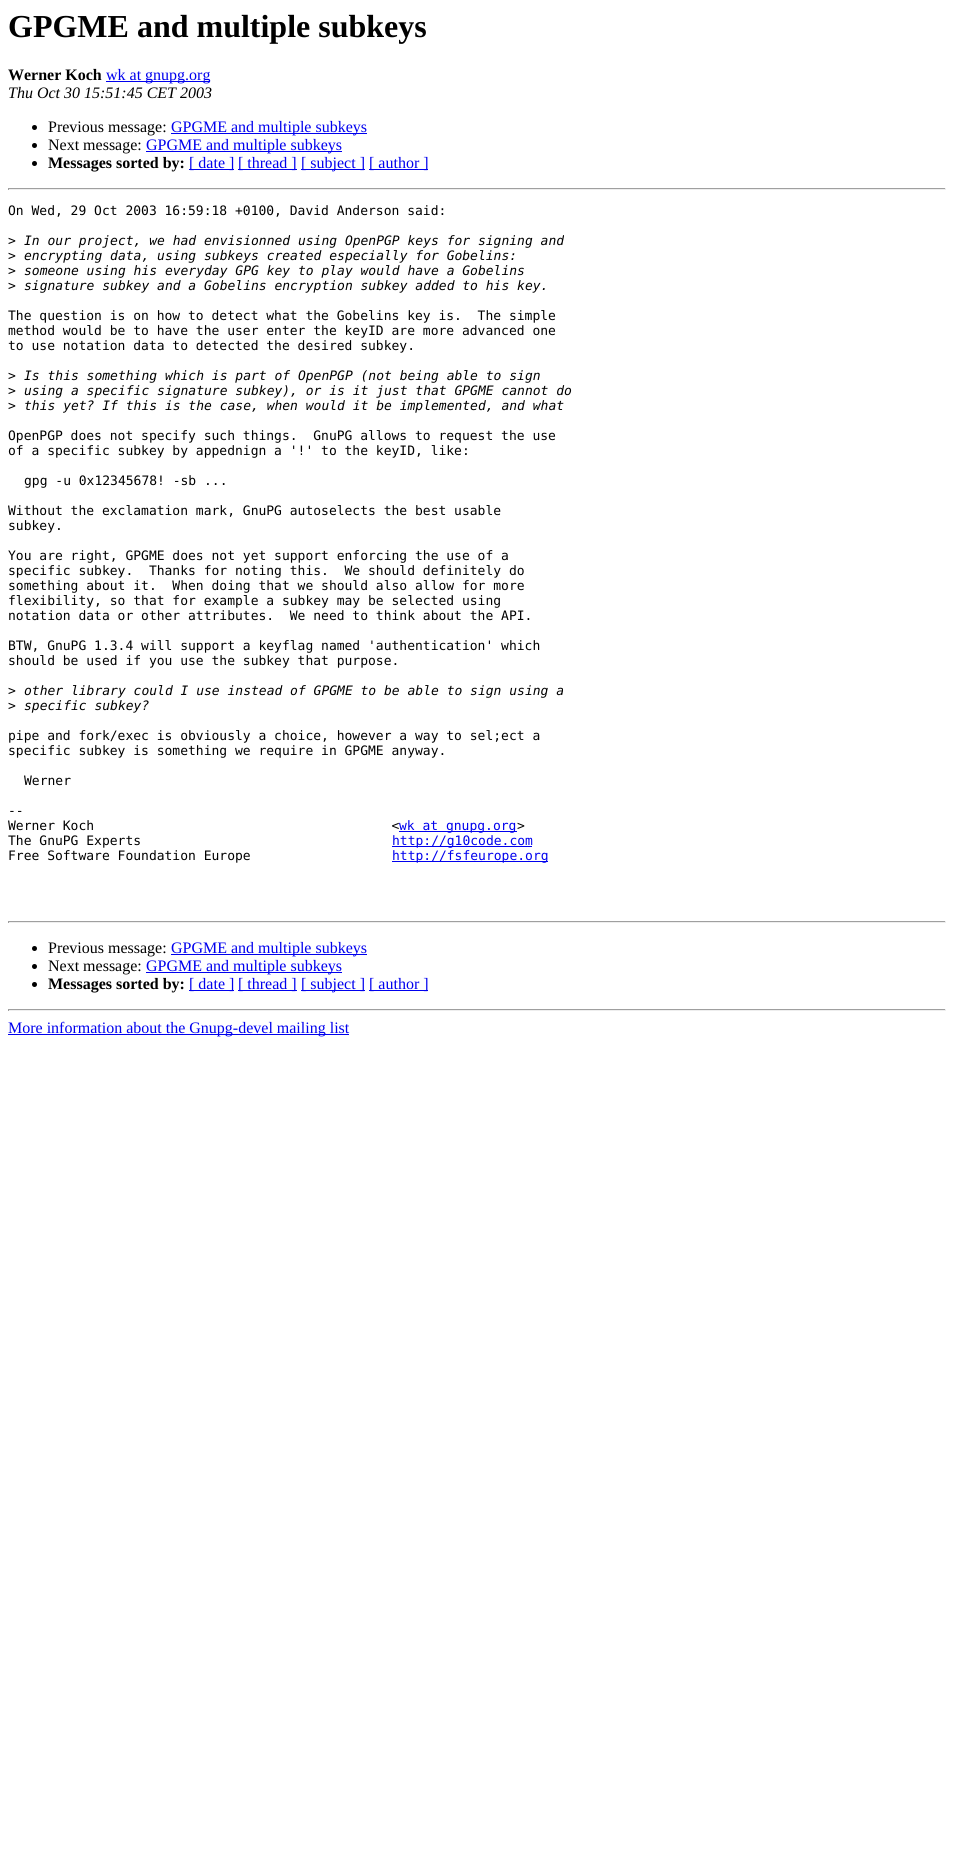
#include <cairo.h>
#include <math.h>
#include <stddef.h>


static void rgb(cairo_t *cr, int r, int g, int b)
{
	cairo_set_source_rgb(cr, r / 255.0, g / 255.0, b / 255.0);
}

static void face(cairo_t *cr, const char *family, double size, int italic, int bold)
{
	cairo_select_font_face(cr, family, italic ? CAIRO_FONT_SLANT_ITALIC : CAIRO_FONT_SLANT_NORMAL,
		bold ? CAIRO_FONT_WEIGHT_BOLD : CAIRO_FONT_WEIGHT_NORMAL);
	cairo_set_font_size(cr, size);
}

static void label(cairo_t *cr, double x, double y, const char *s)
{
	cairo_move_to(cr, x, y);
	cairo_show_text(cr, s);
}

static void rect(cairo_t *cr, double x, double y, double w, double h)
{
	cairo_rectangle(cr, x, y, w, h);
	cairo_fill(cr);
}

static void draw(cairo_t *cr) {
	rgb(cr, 255, 255, 255);
	cairo_paint(cr);
	face(cr, "Liberation Serif", 32, 0, 1);
	rgb(cr, 0, 0, 0);
	label(cr, 8, 37, "GPGME and multiple subkeys");
	face(cr, "Liberation Serif", 16, 0, 1);
	label(cr, 8, 80, "Werner Koch");
	rgb(cr, 0, 0, 238);
	rect(cr, 106, 81, 104, 1);
	face(cr, "Liberation Serif", 16, 0, 0);
	label(cr, 106, 80, "wk at gnupg.org");
	face(cr, "Liberation Serif", 16, 1, 0);
	rgb(cr, 0, 0, 0);
	label(cr, 8, 98, "Thu Oct 30 15:51:45 CET 2003");
	cairo_new_path(cr);
	cairo_arc(cr, 34.5, 127.5, 2.5, 0, 2 * M_PI);
	cairo_fill(cr);
	face(cr, "Liberation Serif", 16, 0, 0);
	label(cr, 48, 132, "Previous message:");
	rgb(cr, 0, 0, 238);
	rect(cr, 171, 133, 196, 1);
	label(cr, 171, 132, "GPGME and multiple subkeys");
	rgb(cr, 0, 0, 0);
	cairo_new_path(cr);
	cairo_arc(cr, 34.5, 145.5, 2.5, 0, 2 * M_PI);
	cairo_fill(cr);
	label(cr, 48, 150, "Next message:");
	rgb(cr, 0, 0, 238);
	rect(cr, 146, 151, 196, 1);
	label(cr, 146, 150, "GPGME and multiple subkeys");
	rgb(cr, 0, 0, 0);
	cairo_new_path(cr);
	cairo_arc(cr, 34.5, 163.5, 2.5, 0, 2 * M_PI);
	cairo_fill(cr);
	face(cr, "Liberation Serif", 16, 0, 1);
	label(cr, 48, 168, "Messages sorted by:");
	rgb(cr, 0, 0, 238);
	rect(cr, 189, 169, 45, 1);
	face(cr, "Liberation Serif", 16, 0, 0);
	label(cr, 189, 168, "[ date ]");
	rect(cr, 238, 169, 59, 1);
	label(cr, 238, 168, "[ thread ]");
	rect(cr, 301, 169, 64, 1);
	label(cr, 301, 168, "[ subject ]");
	rect(cr, 369, 169, 59, 1);
	label(cr, 369, 168, "[ author ]");
	rgb(cr, 159, 159, 159);
	rect(cr, 8, 188, 938, 1);
	rgb(cr, 238, 238, 238);
	rect(cr, 945, 188, 1, 2);
	rect(cr, 8, 189, 938, 1);
	rgb(cr, 159, 159, 159);
	rect(cr, 8, 188, 1, 2);
	face(cr, "DejaVu Sans Mono", 13, 0, 0);
	rgb(cr, 0, 0, 0);
	label(cr, 8, 215, "On Wed, 29 Oct 2003 16:59:18 +0100, David Anderson said:");
	label(cr, 8, 245, ">");
	face(cr, "DejaVu Sans Mono", 13, 1, 0);
	label(cr, 24, 245, "In our project, we had envisionned using OpenPGP keys for signing and");
	face(cr, "DejaVu Sans Mono", 13, 0, 0);
	label(cr, 8, 260, ">");
	face(cr, "DejaVu Sans Mono", 13, 1, 0);
	label(cr, 24, 260, "encrypting data, using subkeys created especially for Gobelins:");
	face(cr, "DejaVu Sans Mono", 13, 0, 0);
	label(cr, 8, 275, ">");
	face(cr, "DejaVu Sans Mono", 13, 1, 0);
	label(cr, 24, 275, "someone using his everyday GPG key to play would have a Gobelins");
	face(cr, "DejaVu Sans Mono", 13, 0, 0);
	label(cr, 8, 290, ">");
	face(cr, "DejaVu Sans Mono", 13, 1, 0);
	label(cr, 24, 290, "signature subkey and a Gobelins encryption subkey added to his key.");
	face(cr, "DejaVu Sans Mono", 13, 0, 0);
	label(cr, 8, 320, "The question is on how to detect what the Gobelins key is.  The simple");
	label(cr, 8, 335, "method would be to have the user enter the keyID are more advanced one");
	label(cr, 8, 350, "to use notation data to detected the desired subkey.");
	label(cr, 8, 380, ">");
	face(cr, "DejaVu Sans Mono", 13, 1, 0);
	label(cr, 24, 380, "Is this something which is part of OpenPGP (not being able to sign");
	face(cr, "DejaVu Sans Mono", 13, 0, 0);
	label(cr, 8, 395, ">");
	face(cr, "DejaVu Sans Mono", 13, 1, 0);
	label(cr, 24, 395, "using a specific signature subkey), or is it just that GPGME cannot do");
	face(cr, "DejaVu Sans Mono", 13, 0, 0);
	label(cr, 8, 410, ">");
	face(cr, "DejaVu Sans Mono", 13, 1, 0);
	label(cr, 24, 410, "this yet? If this is the case, when would it be implemented, and what");
	face(cr, "DejaVu Sans Mono", 13, 0, 0);
	label(cr, 8, 440, "OpenPGP does not specify such things.  GnuPG allows to request the use");
	label(cr, 8, 455, "of a specific subkey by appednign a '!' to the keyID, like:");
	label(cr, 24, 485, "gpg -u 0x12345678! -sb ...");
	label(cr, 8, 515, "Without the exclamation mark, GnuPG autoselects the best usable");
	label(cr, 8, 530, "subkey.");
	label(cr, 8, 560, "You are right, GPGME does not yet support enforcing the use of a");
	label(cr, 8, 575, "specific subkey.  Thanks for noting this.  We should definitely do");
	label(cr, 8, 590, "something about it.  When doing that we should also allow for more");
	label(cr, 8, 605, "flexibility, so that for example a subkey may be selected using");
	label(cr, 8, 620, "notation data or other attributes.  We need to think about the API.");
	label(cr, 8, 650, "BTW, GnuPG 1.3.4 will support a keyflag named 'authentication' which");
	label(cr, 8, 665, "should be used if you use the subkey that purpose.");
	label(cr, 8, 695, ">");
	face(cr, "DejaVu Sans Mono", 13, 1, 0);
	label(cr, 24, 695, "other library could I use instead of GPGME to be able to sign using a");
	face(cr, "DejaVu Sans Mono", 13, 0, 0);
	label(cr, 8, 710, ">");
	face(cr, "DejaVu Sans Mono", 13, 1, 0);
	label(cr, 24, 710, "specific subkey?");
	face(cr, "DejaVu Sans Mono", 13, 0, 0);
	label(cr, 8, 740, "pipe and fork/exec is obviously a choice, however a way to sel;ect a");
	label(cr, 8, 755, "specific subkey is something we require in GPGME anyway.");
	label(cr, 24, 785, "Werner");
	label(cr, 8, 815, "--");
	label(cr, 8, 830, "Werner Koch                                      <");
	rgb(cr, 0, 0, 238);
	rect(cr, 399, 831, 118, 1);
	label(cr, 399, 830, "wk at gnupg.org");
	rgb(cr, 0, 0, 0);
	label(cr, 517, 830, ">");
	label(cr, 8, 845, "The GnuPG Experts");
	rgb(cr, 0, 0, 238);
	rect(cr, 392, 846, 140, 1);
	label(cr, 392, 845, "http://g10code.com");
	rgb(cr, 0, 0, 0);
	label(cr, 8, 860, "Free Software Foundation Europe");
	rgb(cr, 0, 0, 238);
	rect(cr, 392, 861, 156, 1);
	label(cr, 392, 860, "http://fsfeurope.org");
	rgb(cr, 159, 159, 159);
	rect(cr, 8, 921, 938, 1);
	rgb(cr, 238, 238, 238);
	rect(cr, 945, 921, 1, 2);
	rect(cr, 8, 922, 938, 1);
	rgb(cr, 159, 159, 159);
	rect(cr, 8, 921, 1, 2);
	rgb(cr, 0, 0, 0);
	cairo_new_path(cr);
	cairo_arc(cr, 34.5, 948.5, 2.5, 0, 2 * M_PI);
	cairo_fill(cr);
	face(cr, "Liberation Serif", 16, 0, 0);
	label(cr, 48, 953, "Previous message:");
	rgb(cr, 0, 0, 238);
	rect(cr, 171, 954, 196, 1);
	label(cr, 171, 953, "GPGME and multiple subkeys");
	rgb(cr, 0, 0, 0);
	cairo_new_path(cr);
	cairo_arc(cr, 34.5, 966.5, 2.5, 0, 2 * M_PI);
	cairo_fill(cr);
	label(cr, 48, 971, "Next message:");
	rgb(cr, 0, 0, 238);
	rect(cr, 146, 972, 196, 1);
	label(cr, 146, 971, "GPGME and multiple subkeys");
	rgb(cr, 0, 0, 0);
	cairo_new_path(cr);
	cairo_arc(cr, 34.5, 984.5, 2.5, 0, 2 * M_PI);
	cairo_fill(cr);
	face(cr, "Liberation Serif", 16, 0, 1);
	label(cr, 48, 989, "Messages sorted by:");
	rgb(cr, 0, 0, 238);
	rect(cr, 189, 990, 45, 1);
	face(cr, "Liberation Serif", 16, 0, 0);
	label(cr, 189, 989, "[ date ]");
	rect(cr, 238, 990, 59, 1);
	label(cr, 238, 989, "[ thread ]");
	rect(cr, 301, 990, 64, 1);
	label(cr, 301, 989, "[ subject ]");
	rect(cr, 369, 990, 59, 1);
	label(cr, 369, 989, "[ author ]");
	rgb(cr, 159, 159, 159);
	rect(cr, 8, 1009, 938, 1);
	rgb(cr, 238, 238, 238);
	rect(cr, 945, 1009, 1, 2);
	rect(cr, 8, 1010, 938, 1);
	rgb(cr, 159, 159, 159);
	rect(cr, 8, 1009, 1, 2);
	rgb(cr, 0, 0, 238);
	rect(cr, 8, 1034, 341, 1);
	label(cr, 8, 1033, "More information about the Gnupg-devel mailing list");
}

int main(void) {
	cairo_surface_t *surface = cairo_image_surface_create(CAIRO_FORMAT_RGB24, 954, 1868);
	cairo_t *cr = cairo_create(surface);
	cairo_font_options_t *options = cairo_font_options_create();
	cairo_font_options_set_hint_metrics(options, CAIRO_HINT_METRICS_OFF);
	cairo_font_options_set_hint_style(options, CAIRO_HINT_STYLE_NONE);
	cairo_set_font_options(cr, options);
	cairo_set_miter_limit(cr, 4);
	draw(cr);
	cairo_surface_write_to_png(surface, "render.png");
	cairo_font_options_destroy(options);
	cairo_destroy(cr);
	cairo_surface_destroy(surface);
	return 0;
}
